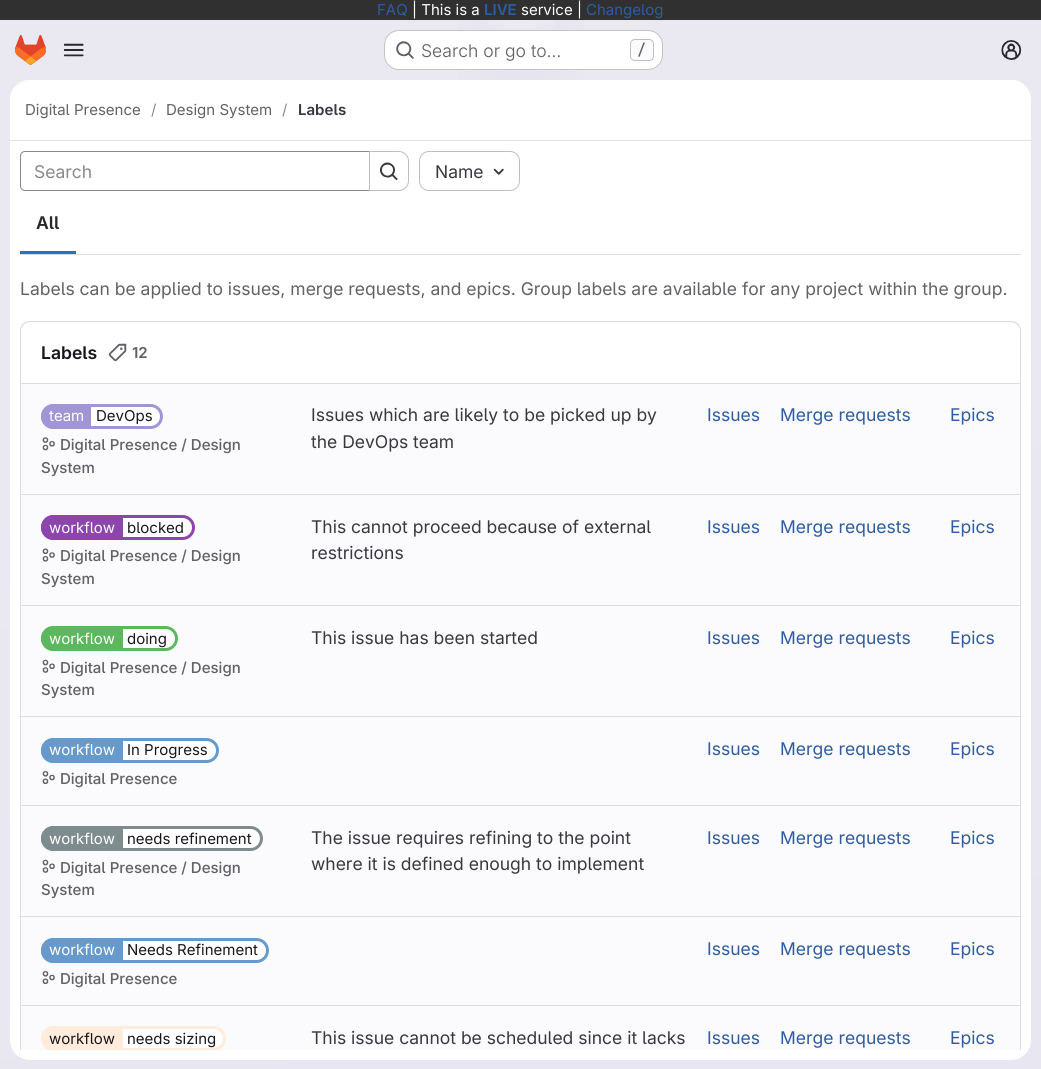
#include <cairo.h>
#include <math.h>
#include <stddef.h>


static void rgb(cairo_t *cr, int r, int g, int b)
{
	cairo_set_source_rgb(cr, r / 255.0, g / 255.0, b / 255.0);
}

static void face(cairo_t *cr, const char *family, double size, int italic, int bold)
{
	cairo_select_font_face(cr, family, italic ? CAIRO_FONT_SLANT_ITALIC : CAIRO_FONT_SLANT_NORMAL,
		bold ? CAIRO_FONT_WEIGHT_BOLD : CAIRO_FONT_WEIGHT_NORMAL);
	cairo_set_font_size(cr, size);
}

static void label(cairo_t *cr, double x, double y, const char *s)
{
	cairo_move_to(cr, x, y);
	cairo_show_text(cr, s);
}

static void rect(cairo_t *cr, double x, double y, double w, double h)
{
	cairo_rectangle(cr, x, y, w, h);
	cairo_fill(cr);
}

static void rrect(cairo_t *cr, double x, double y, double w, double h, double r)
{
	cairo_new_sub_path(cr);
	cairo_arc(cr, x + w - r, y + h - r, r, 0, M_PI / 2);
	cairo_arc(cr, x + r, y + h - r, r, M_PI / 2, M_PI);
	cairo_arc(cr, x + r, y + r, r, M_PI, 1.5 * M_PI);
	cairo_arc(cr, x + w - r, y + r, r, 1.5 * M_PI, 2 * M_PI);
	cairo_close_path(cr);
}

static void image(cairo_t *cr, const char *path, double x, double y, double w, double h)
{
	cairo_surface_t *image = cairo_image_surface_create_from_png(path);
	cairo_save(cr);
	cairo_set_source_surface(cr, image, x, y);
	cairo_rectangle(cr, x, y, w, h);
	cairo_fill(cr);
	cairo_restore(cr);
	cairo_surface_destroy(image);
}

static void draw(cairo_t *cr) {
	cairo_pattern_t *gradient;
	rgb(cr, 255, 255, 255);
	cairo_paint(cr);
	gradient = cairo_pattern_create_linear(628, 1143, 413, -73);
	cairo_pattern_add_color_stop_rgba(gradient, 0, 0.91, 0.902, 0.941, 1);
	cairo_pattern_add_color_stop_rgba(gradient, 0.7, 0.918, 0.914, 0.949, 1);
	cairo_set_source(cr, gradient);
	cairo_pattern_destroy(gradient);
	rect(cr, 0, 20, 1041, 1049);
	gradient = cairo_pattern_create_radial(0, 0, 0, 0, 0, 1);
	cairo_pattern_set_matrix(gradient, &(cairo_matrix_t){1.0 / 521, 0, 0, 1.0 / 1070, -1.0 * 521 / 521, -1.0 * 0 / 1070});
	cairo_pattern_add_color_stop_rgba(gradient, 0, 0.894, 0.886, 0.929, 1);
	cairo_pattern_add_color_stop_rgba(gradient, 0.17, 0.894, 0.886, 0.929, 0);
	cairo_set_source(cr, gradient);
	cairo_pattern_destroy(gradient);
	rect(cr, 458, 20, 126, 60);
	gradient = cairo_pattern_create_radial(0, 0, 0, 0, 0, 1);
	cairo_pattern_set_matrix(gradient, &(cairo_matrix_t){1.0 / 521, 0, 0, 1.0 / 1070, -1.0 * 521 / 521, -1.0 * 0 / 1070});
	cairo_pattern_add_color_stop_rgba(gradient, 0, 0.894, 0.886, 0.925, 1);
	cairo_pattern_add_color_stop_rgba(gradient, 0.12, 0.894, 0.886, 0.925, 0);
	cairo_set_source(cr, gradient);
	cairo_pattern_destroy(gradient);
	rect(cr, 497, 20, 48, 33);
	gradient = cairo_pattern_create_radial(521, 0, 0, 521, 0, 1190);
	cairo_pattern_add_color_stop_rgba(gradient, 0, 1, 1, 1, 0.6);
	cairo_pattern_add_color_stop_rgba(gradient, 0.04, 1, 1, 1, 0);
	cairo_set_source(cr, gradient);
	cairo_pattern_destroy(gradient);
	rect(cr, 487, 20, 68, 10);
	rgb(cr, 48, 48, 48);
	rect(cr, 0, 0, 1041, 20);
	face(cr, "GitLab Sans", 15, 0, 0);
	rgb(cr, 47, 92, 160);
	label(cr, 377, 15, "FAQ");
	rgb(cr, 255, 255, 255);
	label(cr, 412, 15, "| This is a");
	face(cr, "GitLab Sans SemiBold", 15, 0, 0);
	rgb(cr, 47, 92, 160);
	label(cr, 484, 15, "LIVE");
	face(cr, "GitLab Sans", 15, 0, 0);
	rgb(cr, 255, 255, 255);
	label(cr, 521, 15, "service |");
	rgb(cr, 47, 92, 160);
	label(cr, 586, 15, "Changelog");
	image(cr, "image0.png", 15, 35, 31, 30);
	image(cr, "image1.png", 63, 43, 21, 14);
	rgb(cr, 255, 255, 255);
	rrect(cr, 384, 30, 279, 40, 15);
	cairo_fill(cr);
	rrect(cr, 384.5, 30.5, 278, 39, 14.5);
	cairo_set_source_rgba(cr, 0.02, 0.02, 0.024, 0.24);
	cairo_set_line_width(cr, 1);
	cairo_stroke(cr);
	image(cr, "image2.png", 396, 41, 18, 18);
	face(cr, "GitLab Sans Light", 17.5, 0, 0);
	rgb(cr, 98, 97, 104);
	label(cr, 421, 57, "Search or go to…");
	rgb(cr, 251, 250, 253);
	rrect(cr, 630.5, 39.5, 23, 21, 4.5);
	cairo_fill_preserve(cr);
	rgb(cr, 191, 191, 195);
	cairo_stroke(cr);
	face(cr, "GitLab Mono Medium", 15, 0, 0);
	rgb(cr, 98, 97, 104);
	label(cr, 637, 55, "/");
	image(cr, "image3.png", 1001, 40, 21, 20);
	rgb(cr, 255, 255, 255);
	rrect(cr, 10, 80, 1021, 980, 20);
	cairo_fill(cr);
	cairo_new_path(cr);
	cairo_move_to(cr, 30, 80);
	cairo_line_to(cr, 1011, 80);
	cairo_curve_to(cr, 1022, 80, 1031, 89, 1031, 100);
	cairo_line_to(cr, 1031, 141);
	cairo_line_to(cr, 10, 141);
	cairo_line_to(cr, 10, 100);
	cairo_curve_to(cr, 10, 89, 19, 80, 30, 80);
	cairo_close_path(cr);
	cairo_fill(cr);
	rgb(cr, 225, 223, 236);
	rect(cr, 10, 140, 1021, 1);
	face(cr, "GitLab Sans", 15, 0, 0);
	rgb(cr, 98, 97, 104);
	label(cr, 25, 115, "Digital Presence");
	rgb(cr, 137, 136, 141);
	label(cr, 151, 115, "/");
	rgb(cr, 98, 97, 104);
	label(cr, 166, 115, "Design System");
	rgb(cr, 137, 136, 141);
	label(cr, 282, 115, "/");
	face(cr, "GitLab Sans SemiBold", 15, 0, 0);
	rgb(cr, 58, 56, 63);
	label(cr, 298, 115, "Labels");
	rgb(cr, 220, 220, 222);
	rect(cr, 20, 254, 1001, 1);
	cairo_new_path(cr);
	cairo_move_to(cr, 25, 151.5);
	cairo_line_to(cr, 369.5, 151.5);
	cairo_line_to(cr, 369.5, 190.5);
	cairo_line_to(cr, 25, 190.5);
	cairo_curve_to(cr, 22.5, 190.5, 20.5, 188.5, 20.5, 186);
	cairo_line_to(cr, 20.5, 156);
	cairo_curve_to(cr, 20.5, 153.5, 22.5, 151.5, 25, 151.5);
	cairo_close_path(cr);
	rgb(cr, 137, 136, 141);
	cairo_stroke(cr);
	face(cr, "GitLab Sans", 17.5, 0, 0);
	label(cr, 34, 178, "Search");
	rgb(cr, 255, 255, 255);
	cairo_new_path(cr);
	cairo_move_to(cr, 369.5, 151.5);
	cairo_line_to(cr, 399, 151.5);
	cairo_curve_to(cr, 404, 151.5, 408.5, 156, 408.5, 161);
	cairo_line_to(cr, 408.5, 181);
	cairo_curve_to(cr, 408.5, 186, 404, 190.5, 399, 190.5);
	cairo_line_to(cr, 369.5, 190.5);
	cairo_close_path(cr);
	cairo_fill_preserve(cr);
	rgb(cr, 191, 191, 195);
	cairo_stroke(cr);
	image(cr, "image4.png", 380, 162, 18, 18);
	rrect(cr, 419.5, 151.5, 100, 39, 9.5);
	cairo_stroke(cr);
	rgb(cr, 58, 56, 63);
	label(cr, 435, 178, "Name");
	image(cr, "image5.png", 493, 168, 11, 7);
	face(cr, "GitLab Sans SemiBold", 17.5, 0, 0);
	rgb(cr, 40, 39, 45);
	label(cr, 36, 229, "All");
	rgb(cr, 31, 117, 203);
	rect(cr, 20, 251, 56, 3);
	face(cr, "GitLab Sans", 17.5, 0, 0);
	rgb(cr, 98, 97, 104);
	label(cr, 20, 295, "Labels can be applied to issues, merge requests, and epics. Group labels are available for any project within the group.");
	rgb(cr, 251, 250, 253);
	cairo_new_path(cr);
	cairo_move_to(cr, 30, 321);
	cairo_line_to(cr, 1011, 321);
	cairo_curve_to(cr, 1016.5, 321, 1021, 325.5, 1021, 331);
	cairo_line_to(cr, 1021, 1050);
	cairo_line_to(cr, 20, 1050);
	cairo_line_to(cr, 20, 331);
	cairo_curve_to(cr, 20, 325.5, 24.5, 321, 30, 321);
	cairo_close_path(cr);
	cairo_fill(cr);
	cairo_save(cr);
	cairo_rectangle(cr, 10, 141, 1021, 909);
	cairo_clip(cr);
	rgb(cr, 220, 220, 222);
	cairo_new_path(cr);
	cairo_move_to(cr, 30, 321);
	cairo_curve_to(cr, 24, 321, 20, 325, 20, 331);
	cairo_line_to(cr, 20, 1057);
	cairo_line_to(cr, 21, 1058);
	cairo_line_to(cr, 21, 331);
	cairo_curve_to(cr, 21, 326, 25, 322, 30, 322);
	cairo_line_to(cr, 1011, 322);
	cairo_curve_to(cr, 1016, 322, 1020, 326, 1020, 331);
	cairo_line_to(cr, 1020, 1058);
	cairo_line_to(cr, 1021, 1057);
	cairo_line_to(cr, 1021, 331);
	cairo_curve_to(cr, 1021, 325, 1017, 321, 1011, 321);
	cairo_close_path(cr);
	cairo_fill(cr);
	cairo_restore(cr);
	rgb(cr, 255, 255, 255);
	cairo_new_path(cr);
	cairo_move_to(cr, 31, 323);
	cairo_line_to(cr, 1010, 323);
	cairo_curve_to(cr, 1015.5, 323, 1020, 327.5, 1020, 333);
	cairo_line_to(cr, 1020, 384);
	cairo_line_to(cr, 21, 384);
	cairo_line_to(cr, 21, 333);
	cairo_curve_to(cr, 21, 327.5, 25.5, 323, 31, 323);
	cairo_close_path(cr);
	cairo_fill(cr);
	rgb(cr, 220, 220, 222);
	rect(cr, 21, 383, 999, 1);
	face(cr, "GitLab Sans SemiBold", 17.5, 0, 0);
	rgb(cr, 24, 23, 29);
	label(cr, 41, 359, "Labels");
	image(cr, "image6.png", 108, 343, 19, 19);
	face(cr, "GitLab Sans SemiBold", 15, 0, 0);
	rgb(cr, 98, 97, 104);
	label(cr, 132, 358, "12");
	rgb(cr, 220, 220, 222);
	rect(cr, 21, 494, 999, 1);
	rgb(cr, 255, 255, 255);
	rrect(cr, 42.5, 405.5, 119, 22, 11);
	cairo_fill_preserve(cr);
	rgb(cr, 162, 149, 214);
	cairo_set_line_width(cr, 3);
	cairo_stroke(cr);
	cairo_new_path(cr);
	cairo_move_to(cr, 53.5, 404);
	cairo_line_to(cr, 91, 404);
	cairo_line_to(cr, 91, 429);
	cairo_line_to(cr, 53.5, 429);
	cairo_curve_to(cr, 46.5, 429, 41, 423.5, 41, 416.5);
	cairo_curve_to(cr, 41, 409.5, 46.5, 404, 53.5, 404);
	cairo_close_path(cr);
	cairo_fill(cr);
	face(cr, "GitLab Sans", 15, 0, 0);
	rgb(cr, 255, 255, 255);
	label(cr, 49, 421, "team");
	rgb(cr, 24, 23, 29);
	label(cr, 96, 421, "DevOps");
	image(cr, "image7.png", 42, 437, 13, 14);
	face(cr, "GitLab Sans Medium", 15, 0, 0);
	rgb(cr, 98, 97, 104);
	label(cr, 60, 450, "Digital Presence / Design");
	label(cr, 41, 473, "System");
	face(cr, "GitLab Sans", 17.5, 0, 0);
	rgb(cr, 58, 56, 63);
	label(cr, 311, 421, "Issues which are likely to be picked up by");
	label(cr, 311, 448, "the DevOps team");
	rgb(cr, 47, 92, 160);
	label(cr, 707, 421, "Issues");
	label(cr, 780, 421, "Merge requests");
	label(cr, 950, 421, "Epics");
	rgb(cr, 220, 220, 222);
	rect(cr, 21, 605, 999, 1);
	rgb(cr, 255, 255, 255);
	rrect(cr, 42.5, 516.5, 151, 22, 11);
	cairo_fill_preserve(cr);
	rgb(cr, 142, 68, 173);
	cairo_stroke(cr);
	cairo_new_path(cr);
	cairo_move_to(cr, 53.5, 515);
	cairo_line_to(cr, 123, 515);
	cairo_line_to(cr, 123, 540);
	cairo_line_to(cr, 53.5, 540);
	cairo_curve_to(cr, 46.5, 540, 41, 534.5, 41, 527.5);
	cairo_curve_to(cr, 41, 520.5, 46.5, 515, 53.5, 515);
	cairo_close_path(cr);
	cairo_fill(cr);
	face(cr, "GitLab Sans", 15, 0, 0);
	rgb(cr, 255, 255, 255);
	label(cr, 49, 533, "workflow");
	rgb(cr, 24, 23, 29);
	label(cr, 127, 533, "blocked");
	image(cr, "image8.png", 42, 548, 13, 14);
	face(cr, "GitLab Sans Medium", 15, 0, 0);
	rgb(cr, 98, 97, 104);
	label(cr, 60, 561, "Digital Presence / Design");
	label(cr, 41, 584, "System");
	face(cr, "GitLab Sans", 17.5, 0, 0);
	rgb(cr, 58, 56, 63);
	label(cr, 311, 533, "This cannot proceed because of external");
	label(cr, 311, 559, "restrictions");
	rgb(cr, 47, 92, 160);
	label(cr, 707, 533, "Issues");
	label(cr, 780, 533, "Merge requests");
	label(cr, 950, 533, "Epics");
	rgb(cr, 220, 220, 222);
	rect(cr, 21, 716, 999, 1);
	rgb(cr, 255, 255, 255);
	rrect(cr, 42.5, 627.5, 134, 22, 11);
	cairo_fill_preserve(cr);
	rgb(cr, 92, 184, 92);
	cairo_stroke(cr);
	cairo_new_path(cr);
	cairo_move_to(cr, 53.5, 626);
	cairo_line_to(cr, 123, 626);
	cairo_line_to(cr, 123, 651);
	cairo_line_to(cr, 53.5, 651);
	cairo_curve_to(cr, 46.5, 651, 41, 645.5, 41, 638.5);
	cairo_curve_to(cr, 41, 631.5, 46.5, 626, 53.5, 626);
	cairo_close_path(cr);
	cairo_fill(cr);
	face(cr, "GitLab Sans", 15, 0, 0);
	rgb(cr, 255, 255, 255);
	label(cr, 49, 644, "workflow");
	rgb(cr, 24, 23, 29);
	label(cr, 127, 644, "doing");
	image(cr, "image9.png", 42, 659, 13, 14);
	face(cr, "GitLab Sans Medium", 15, 0, 0);
	rgb(cr, 98, 97, 104);
	label(cr, 60, 673, "Digital Presence / Design");
	label(cr, 41, 695, "System");
	face(cr, "GitLab Sans", 17.5, 0, 0);
	rgb(cr, 58, 56, 63);
	label(cr, 311, 644, "This issue has been started");
	rgb(cr, 47, 92, 160);
	label(cr, 707, 644, "Issues");
	label(cr, 780, 644, "Merge requests");
	label(cr, 950, 644, "Epics");
	rgb(cr, 220, 220, 222);
	rect(cr, 21, 805, 999, 1);
	rgb(cr, 255, 255, 255);
	rrect(cr, 42.5, 739.5, 175, 22, 11);
	cairo_fill_preserve(cr);
	rgb(cr, 102, 153, 204);
	cairo_stroke(cr);
	cairo_new_path(cr);
	cairo_move_to(cr, 53.5, 738);
	cairo_line_to(cr, 123, 738);
	cairo_line_to(cr, 123, 763);
	cairo_line_to(cr, 53.5, 763);
	cairo_curve_to(cr, 46.5, 763, 41, 757.5, 41, 750.5);
	cairo_curve_to(cr, 41, 743.5, 46.5, 738, 53.5, 738);
	cairo_close_path(cr);
	cairo_fill(cr);
	face(cr, "GitLab Sans", 15, 0, 0);
	rgb(cr, 255, 255, 255);
	label(cr, 49, 755, "workflow");
	rgb(cr, 24, 23, 29);
	label(cr, 127, 755, "In Progress");
	image(cr, "image10.png", 42, 771, 13, 13);
	face(cr, "GitLab Sans Medium", 15, 0, 0);
	rgb(cr, 98, 97, 104);
	label(cr, 60, 784, "Digital Presence");
	face(cr, "GitLab Sans", 17.5, 0, 0);
	rgb(cr, 47, 92, 160);
	label(cr, 707, 755, "Issues");
	label(cr, 780, 755, "Merge requests");
	label(cr, 950, 755, "Epics");
	rgb(cr, 220, 220, 222);
	rect(cr, 21, 916, 999, 1);
	rgb(cr, 255, 255, 255);
	rrect(cr, 42.5, 827.5, 219, 22, 11);
	cairo_fill_preserve(cr);
	rgb(cr, 127, 140, 141);
	cairo_stroke(cr);
	cairo_new_path(cr);
	cairo_move_to(cr, 53.5, 826);
	cairo_line_to(cr, 123, 826);
	cairo_line_to(cr, 123, 851);
	cairo_line_to(cr, 53.5, 851);
	cairo_curve_to(cr, 46.5, 851, 41, 845.5, 41, 838.5);
	cairo_curve_to(cr, 41, 831.5, 46.5, 826, 53.5, 826);
	cairo_close_path(cr);
	cairo_fill(cr);
	face(cr, "GitLab Sans", 15, 0, 0);
	rgb(cr, 255, 255, 255);
	label(cr, 49, 844, "workflow");
	rgb(cr, 24, 23, 29);
	label(cr, 127, 844, "needs refinement");
	image(cr, "image9.png", 42, 859, 13, 14);
	face(cr, "GitLab Sans Medium", 15, 0, 0);
	rgb(cr, 98, 97, 104);
	label(cr, 60, 873, "Digital Presence / Design");
	label(cr, 41, 895, "System");
	face(cr, "GitLab Sans", 17.5, 0, 0);
	rgb(cr, 58, 56, 63);
	label(cr, 311, 844, "The issue requires refining to the point");
	label(cr, 311, 870, "where it is defined enough to implement");
	rgb(cr, 47, 92, 160);
	label(cr, 707, 844, "Issues");
	label(cr, 780, 844, "Merge requests");
	label(cr, 950, 844, "Epics");
	rgb(cr, 220, 220, 222);
	rect(cr, 21, 1005, 999, 1);
	rgb(cr, 255, 255, 255);
	rrect(cr, 42.5, 939.5, 225, 22, 11);
	cairo_fill_preserve(cr);
	rgb(cr, 102, 153, 204);
	cairo_stroke(cr);
	cairo_new_path(cr);
	cairo_move_to(cr, 53.5, 938);
	cairo_line_to(cr, 123, 938);
	cairo_line_to(cr, 123, 963);
	cairo_line_to(cr, 53.5, 963);
	cairo_curve_to(cr, 46.5, 963, 41, 957.5, 41, 950.5);
	cairo_curve_to(cr, 41, 943.5, 46.5, 938, 53.5, 938);
	cairo_close_path(cr);
	cairo_fill(cr);
	face(cr, "GitLab Sans", 15, 0, 0);
	rgb(cr, 255, 255, 255);
	label(cr, 49, 955, "workflow");
	rgb(cr, 24, 23, 29);
	label(cr, 127, 955, "Needs Refinement");
	image(cr, "image10.png", 42, 971, 13, 13);
	face(cr, "GitLab Sans Medium", 15, 0, 0);
	rgb(cr, 98, 97, 104);
	label(cr, 60, 984, "Digital Presence");
	face(cr, "GitLab Sans", 17.5, 0, 0);
	rgb(cr, 47, 92, 160);
	label(cr, 707, 955, "Issues");
	label(cr, 780, 955, "Merge requests");
	label(cr, 950, 955, "Epics");
	cairo_save(cr);
	cairo_rectangle(cr, 10, 141, 1021, 909);
	cairo_clip(cr);
	rgb(cr, 255, 255, 255);
	rrect(cr, 42.5, 1027.5, 182, 22, 11);
	cairo_fill_preserve(cr);
	rgb(cr, 255, 236, 219);
	cairo_stroke(cr);
	cairo_restore(cr);
	cairo_save(cr);
	rrect(cr, 41, 1026, 185, 25, 12.5);
	cairo_clip(cr);
	rgb(cr, 255, 236, 219);
	cairo_new_path(cr);
	cairo_move_to(cr, 53.5, 1026);
	cairo_line_to(cr, 123, 1026);
	cairo_line_to(cr, 123, 1050);
	cairo_line_to(cr, 41, 1050);
	cairo_line_to(cr, 41, 1038.5);
	cairo_curve_to(cr, 41, 1031.5, 46.5, 1026, 53.5, 1026);
	cairo_close_path(cr);
	cairo_fill(cr);
	cairo_restore(cr);
	face(cr, "GitLab Sans", 15, 0, 0);
	rgb(cr, 24, 23, 29);
	label(cr, 49, 1044, "workflow");
	label(cr, 127, 1044, "needs sizing");
	face(cr, "GitLab Sans", 17.5, 0, 0);
	rgb(cr, 58, 56, 63);
	label(cr, 311, 1044, "This issue cannot be scheduled since it lacks");
	rgb(cr, 47, 92, 160);
	label(cr, 707, 1044, "Issues");
	label(cr, 780, 1044, "Merge requests");
	label(cr, 950, 1044, "Epics");
}

int main(void) {
	cairo_surface_t *surface = cairo_image_surface_create(CAIRO_FORMAT_RGB24, 1041, 1069);
	cairo_t *cr = cairo_create(surface);
	cairo_font_options_t *options = cairo_font_options_create();
	cairo_font_options_set_hint_metrics(options, CAIRO_HINT_METRICS_OFF);
	cairo_font_options_set_hint_style(options, CAIRO_HINT_STYLE_NONE);
	cairo_set_font_options(cr, options);
	cairo_set_miter_limit(cr, 4);
	draw(cr);
	cairo_surface_write_to_png(surface, "render.png");
	cairo_font_options_destroy(options);
	cairo_destroy(cr);
	cairo_surface_destroy(surface);
	return 0;
}
